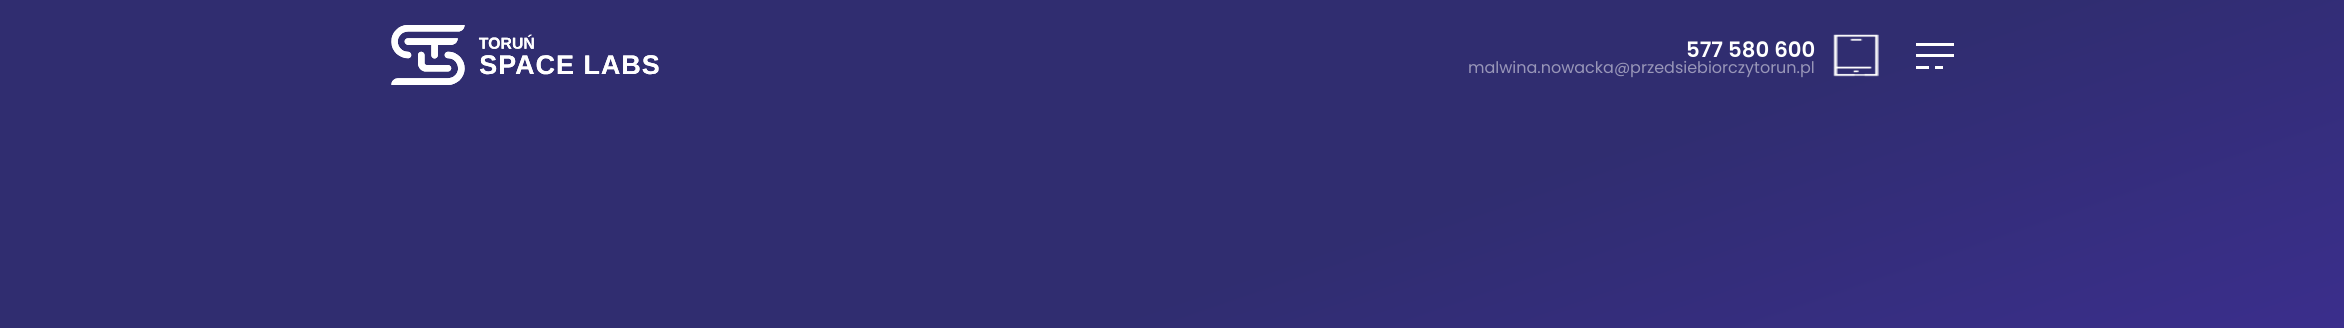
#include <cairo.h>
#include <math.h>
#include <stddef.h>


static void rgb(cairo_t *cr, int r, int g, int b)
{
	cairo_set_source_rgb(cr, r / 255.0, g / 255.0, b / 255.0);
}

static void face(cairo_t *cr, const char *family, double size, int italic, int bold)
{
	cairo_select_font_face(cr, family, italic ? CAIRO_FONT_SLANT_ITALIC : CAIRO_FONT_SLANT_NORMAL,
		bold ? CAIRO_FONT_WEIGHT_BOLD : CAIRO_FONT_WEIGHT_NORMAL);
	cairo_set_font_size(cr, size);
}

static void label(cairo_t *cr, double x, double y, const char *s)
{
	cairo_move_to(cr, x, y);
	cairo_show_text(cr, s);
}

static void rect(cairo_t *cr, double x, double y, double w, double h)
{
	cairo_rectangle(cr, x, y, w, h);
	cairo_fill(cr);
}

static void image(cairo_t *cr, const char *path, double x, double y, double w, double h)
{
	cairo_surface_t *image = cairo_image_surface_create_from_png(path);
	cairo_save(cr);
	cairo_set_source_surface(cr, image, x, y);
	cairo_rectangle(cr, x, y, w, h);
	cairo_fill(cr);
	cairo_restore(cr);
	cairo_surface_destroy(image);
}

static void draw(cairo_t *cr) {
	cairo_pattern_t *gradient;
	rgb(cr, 255, 255, 255);
	cairo_paint(cr);
	gradient = cairo_pattern_create_linear(952, -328, 1393, 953);
	cairo_pattern_add_color_stop_rgba(gradient, 0, 0.188, 0.176, 0.439, 1);
	cairo_pattern_add_color_stop_rgba(gradient, 0.49, 0.188, 0.176, 0.439, 1);
	cairo_pattern_add_color_stop_rgba(gradient, 1, 0.259, 0.184, 0.624, 1);
	cairo_set_source(cr, gradient);
	cairo_pattern_destroy(gradient);
	rect(cr, 0, 0, 2344, 328);
	image(cr, "image0.png", 391, 25, 268, 60);
	face(cr, "Poppins SemiBold", 21.25, 0, 0);
	rgb(cr, 255, 255, 255);
	label(cr, 1686, 57, "577 580 600");
	face(cr, "Poppins", 16, 0, 0);
	rgb(cr, 152, 150, 184);
	label(cr, 1468, 73, "malwina.nowacka@przedsiebiorczytorun.pl");
	image(cr, "image1.png", 1833, 34, 46, 43);
	rgb(cr, 255, 255, 255);
	rect(cr, 1916, 43, 38, 3);
	rect(cr, 1916, 54, 38, 3);
	rect(cr, 1916, 66, 13, 3);
	rect(cr, 1935, 66, 8, 3);
}

int main(void) {
	cairo_surface_t *surface = cairo_image_surface_create(CAIRO_FORMAT_RGB24, 2344, 328);
	cairo_t *cr = cairo_create(surface);
	cairo_font_options_t *options = cairo_font_options_create();
	cairo_font_options_set_hint_metrics(options, CAIRO_HINT_METRICS_OFF);
	cairo_font_options_set_hint_style(options, CAIRO_HINT_STYLE_NONE);
	cairo_set_font_options(cr, options);
	cairo_set_miter_limit(cr, 4);
	draw(cr);
	cairo_surface_write_to_png(surface, "render.png");
	cairo_font_options_destroy(options);
	cairo_destroy(cr);
	cairo_surface_destroy(surface);
	return 0;
}
